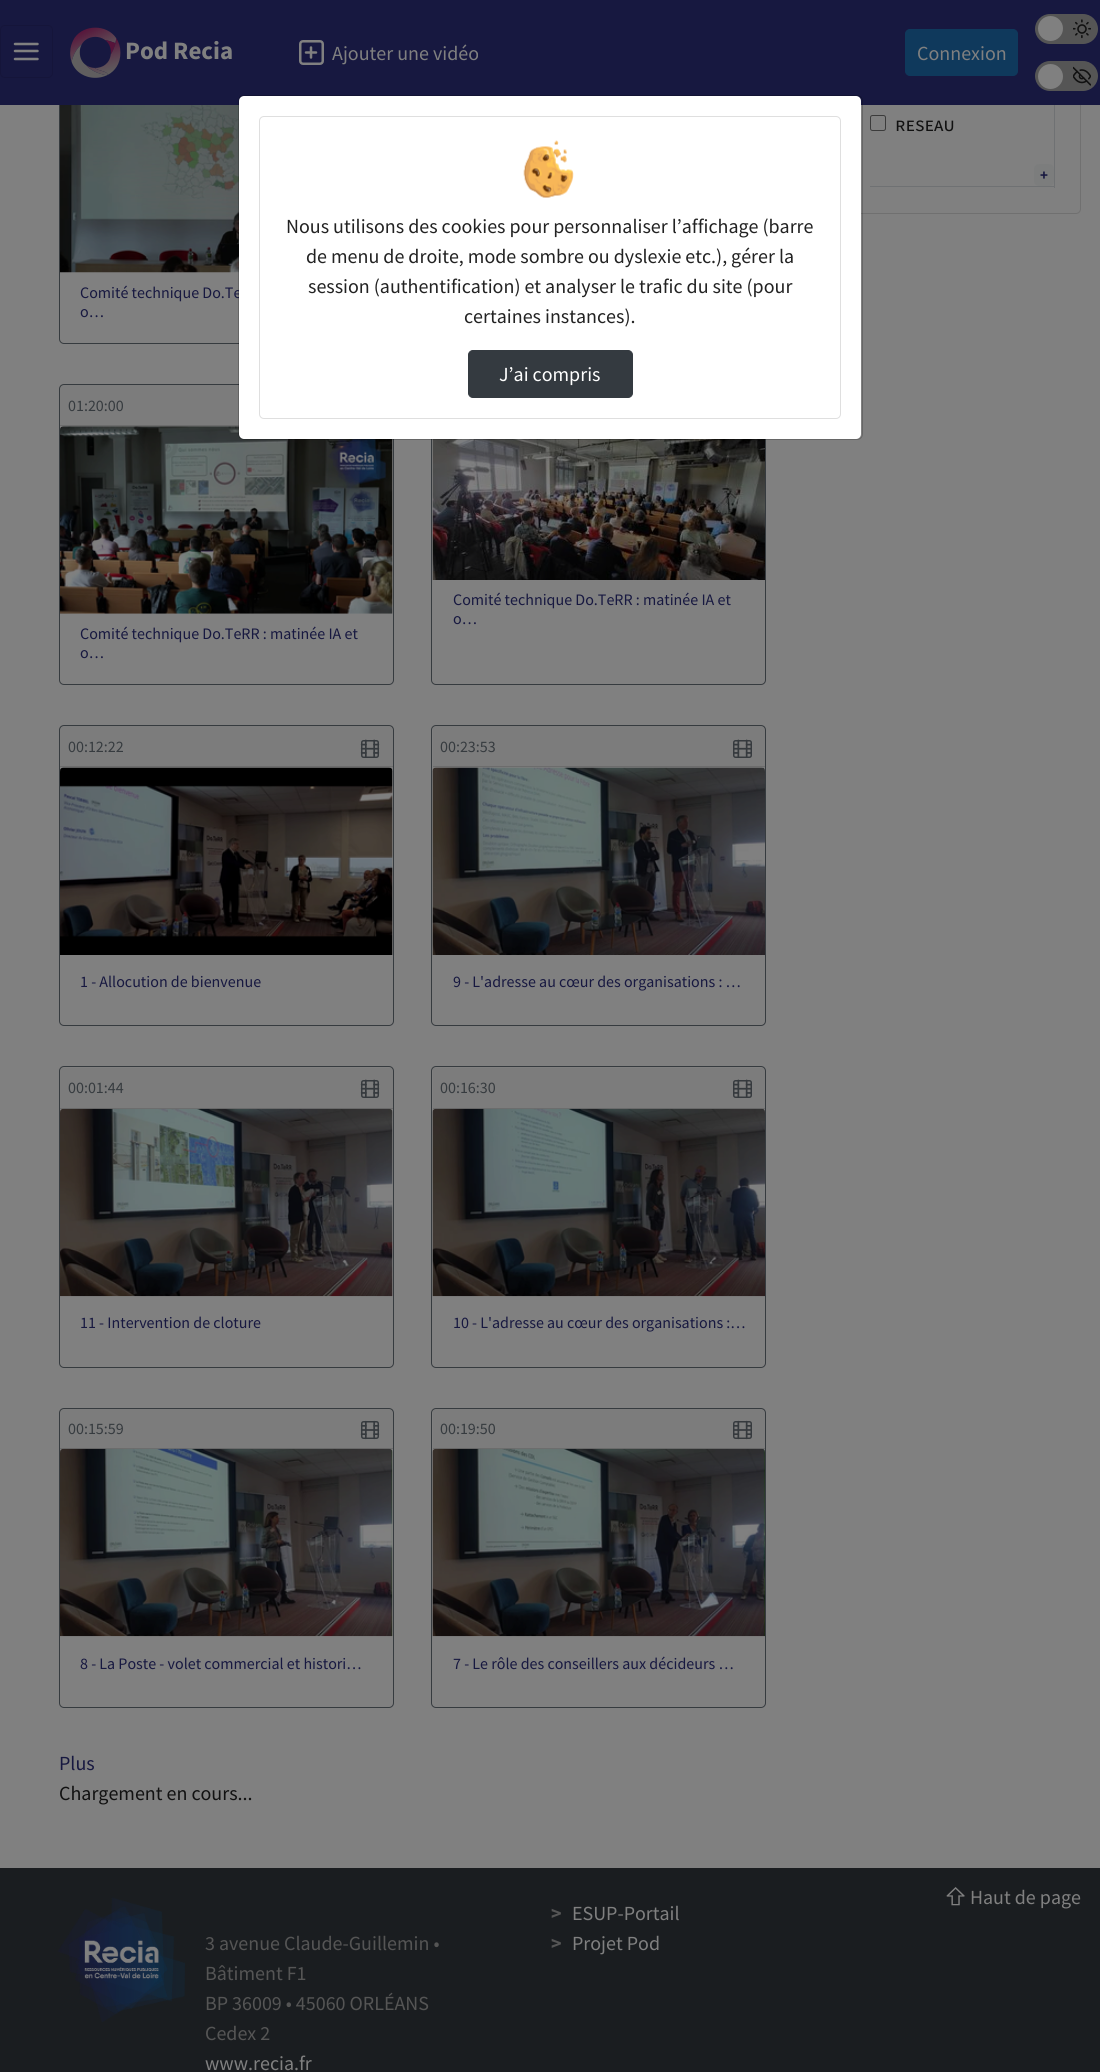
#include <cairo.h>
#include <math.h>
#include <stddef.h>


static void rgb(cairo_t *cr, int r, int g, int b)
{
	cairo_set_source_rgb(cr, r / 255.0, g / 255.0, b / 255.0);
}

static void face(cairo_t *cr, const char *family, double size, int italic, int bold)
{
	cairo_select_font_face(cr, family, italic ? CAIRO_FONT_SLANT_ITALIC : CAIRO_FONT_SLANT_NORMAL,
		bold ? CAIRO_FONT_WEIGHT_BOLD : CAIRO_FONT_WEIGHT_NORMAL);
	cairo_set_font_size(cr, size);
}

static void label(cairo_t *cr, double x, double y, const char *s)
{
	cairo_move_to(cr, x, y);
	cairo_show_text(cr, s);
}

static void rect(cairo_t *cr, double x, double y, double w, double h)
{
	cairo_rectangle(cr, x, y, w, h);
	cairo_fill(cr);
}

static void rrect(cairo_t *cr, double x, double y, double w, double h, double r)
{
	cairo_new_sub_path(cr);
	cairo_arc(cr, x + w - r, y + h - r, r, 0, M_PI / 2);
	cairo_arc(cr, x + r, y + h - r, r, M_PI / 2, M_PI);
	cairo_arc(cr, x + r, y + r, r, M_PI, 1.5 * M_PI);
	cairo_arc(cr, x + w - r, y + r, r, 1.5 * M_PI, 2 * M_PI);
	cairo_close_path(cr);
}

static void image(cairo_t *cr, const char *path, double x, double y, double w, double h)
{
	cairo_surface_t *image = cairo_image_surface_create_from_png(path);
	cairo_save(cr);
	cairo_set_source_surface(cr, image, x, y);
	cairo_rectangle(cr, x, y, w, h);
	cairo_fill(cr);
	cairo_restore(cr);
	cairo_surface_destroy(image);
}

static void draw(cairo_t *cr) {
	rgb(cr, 128, 128, 128);
	cairo_paint(cr);
	rrect(cr, 844.5, -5.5, 236, 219, 4.5);
	rgb(cr, 112, 112, 112);
	cairo_set_line_width(cr, 1);
	cairo_stroke(cr);
	rrect(cr, 59.5, 44.5, 334, 299, 4.5);
	rgb(cr, 54, 59, 63);
	cairo_stroke(cr);
	rgb(cr, 23, 24, 64);
	rect(cr, 0, 0, 1100, 105);
	rrect(cr, 0.5, 25.5, 52, 52, 4.5);
	rgb(cr, 21, 21, 58);
	cairo_stroke(cr);
	cairo_new_path(cr);
	cairo_move_to(cr, 15, 51);
	cairo_line_to(cr, 37.5, 51);
	cairo_move_to(cr, 15, 44);
	cairo_line_to(cr, 37.5, 44);
	cairo_move_to(cr, 15, 59);
	cairo_line_to(cr, 37.5, 59);
	rgb(cr, 128, 128, 128);
	cairo_set_line_width(cr, 2.5);
	cairo_set_line_cap(cr, CAIRO_LINE_CAP_ROUND);
	cairo_set_line_join(cr, CAIRO_LINE_JOIN_ROUND);
	cairo_stroke(cr);
	image(cr, "image0.png", 70, 27, 51, 51);
	face(cr, "Source Sans Pro", 25, 0, 1);
	label(cr, 125, 59, "Pod Recia");
	rrect(cr, 300.25, 41.25, 22.5, 22.5, 2.75);
	cairo_set_line_cap(cr, CAIRO_LINE_CAP_BUTT);
	cairo_set_line_join(cr, CAIRO_LINE_JOIN_MITER);
	cairo_stroke(cr);
	face(cr, "Source Sans Pro", 20, 0, 0);
	label(cr, 332, 60, "Ajouter une vidéo");
	cairo_new_path(cr);
	cairo_move_to(cr, 311, 47.5);
	cairo_line_to(cr, 311, 57.5);
	cairo_move_to(cr, 306, 52.5);
	cairo_line_to(cr, 316, 52.5);
	cairo_set_line_cap(cr, CAIRO_LINE_CAP_ROUND);
	cairo_set_line_join(cr, CAIRO_LINE_JOIN_ROUND);
	cairo_stroke(cr);
	rgb(cr, 15, 57, 92);
	rrect(cr, 905.5, 29.5, 112, 46, 4.5);
	cairo_fill_preserve(cr);
	cairo_set_line_width(cr, 1);
	cairo_set_line_cap(cr, CAIRO_LINE_CAP_BUTT);
	cairo_set_line_join(cr, CAIRO_LINE_JOIN_MITER);
	cairo_stroke(cr);
	rgb(cr, 128, 128, 128);
	label(cr, 917, 60, "Connexion");
	rgb(cr, 85, 85, 85);
	rrect(cr, 1035, 14, 63, 30, 15);
	cairo_fill(cr);
	rgb(cr, 128, 128, 128);
	cairo_arc(cr, 1050.5, 28.5, 12.5, 0, 2 * M_PI);
	cairo_fill(cr);
	image(cr, "image1.png", 1073, 19, 18, 20);
	rgb(cr, 85, 85, 85);
	rrect(cr, 1035, 61, 63, 30, 15);
	cairo_fill(cr);
	rgb(cr, 128, 128, 128);
	cairo_arc(cr, 1050.5, 76.5, 12.5, 0, 2 * M_PI);
	cairo_fill(cr);
	image(cr, "image2.png", 1073, 66, 18, 20);
	rgb(cr, 111, 113, 115);
	rect(cr, 1054, 105, 1, 83);
	rect(cr, 870, 186, 185, 1);
	rrect(cr, 870.5, 115.5, 15, 15, 2);
	rgb(cr, 59, 59, 59);
	cairo_stroke(cr);
	face(cr, "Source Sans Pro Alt", 20, 0, 0);
	rgb(cr, 17, 17, 17);
	label(cr, 895, 131, "reseau");
	rgb(cr, 124, 125, 125);
	rrect(cr, 1034, 164, 20, 22, 5);
	cairo_fill(cr);
	face(cr, "Source Sans Pro", 15, 0, 1);
	rgb(cr, 23, 24, 64);
	label(cr, 1040, 180, "+");
	image(cr, "image3.png", 60, 105, 179, 168);
	face(cr, "Source Sans Pro", 16, 0, 0);
	label(cr, 80, 298, "Comité technique Do.Te");
	label(cr, 80, 317, "o…");
	rrect(cr, 59.5, 384.5, 334, 300, 4.5);
	rgb(cr, 54, 59, 63);
	cairo_stroke(cr);
	cairo_set_source_rgba(cr, 0, 0, 0, 0.03);
	rect(cr, 60, 385, 179, 40);
	rgb(cr, 108, 108, 108);
	rect(cr, 60, 425, 179, 1);
	rgb(cr, 54, 59, 63);
	label(cr, 68, 411, "01:20:00");
	image(cr, "image4.png", 60, 426, 333, 188);
	rgb(cr, 23, 24, 64);
	label(cr, 80, 639, "Comité technique Do.TeRR : matinée IA et");
	label(cr, 80, 658, "o…");
	rrect(cr, 431.5, 384.5, 334, 300, 4.5);
	rgb(cr, 54, 59, 63);
	cairo_stroke(cr);
	image(cr, "image5.png", 432, 439, 333, 141);
	rgb(cr, 23, 24, 64);
	label(cr, 453, 605, "Comité technique Do.TeRR : matinée IA et");
	label(cr, 453, 624, "o…");
	rrect(cr, 59.5, 725.5, 334, 300, 4.5);
	rgb(cr, 54, 59, 63);
	cairo_stroke(cr);
	cairo_set_source_rgba(cr, 0, 0, 0, 0.03);
	rect(cr, 60, 726, 333, 42);
	rgb(cr, 108, 108, 108);
	rect(cr, 60, 766, 333, 1);
	rgb(cr, 54, 59, 63);
	label(cr, 68, 752, "00:12:22");
	image(cr, "image6.png", 360, 739, 20, 19);
	image(cr, "image7.png", 60, 767, 333, 188);
	rgb(cr, 23, 24, 64);
	label(cr, 80, 987, "1 - Allocution de bienvenue");
	rrect(cr, 431.5, 725.5, 334, 300, 4.5);
	rgb(cr, 54, 59, 63);
	cairo_stroke(cr);
	cairo_set_source_rgba(cr, 0, 0, 0, 0.03);
	rect(cr, 433, 726, 332, 42);
	rgb(cr, 108, 108, 108);
	rect(cr, 433, 766, 332, 1);
	rgb(cr, 54, 59, 63);
	label(cr, 440, 752, "00:23:53");
	image(cr, "image8.png", 733, 739, 19, 19);
	image(cr, "image9.png", 432, 767, 333, 188);
	rgb(cr, 23, 24, 64);
	label(cr, 453, 987, "9 - L'adresse au cœur des organisations : …");
	rrect(cr, 59.5, 1066.5, 334, 301, 4.5);
	rgb(cr, 54, 59, 63);
	cairo_stroke(cr);
	cairo_set_source_rgba(cr, 0, 0, 0, 0.03);
	rect(cr, 60, 1068, 333, 40);
	rgb(cr, 108, 108, 108);
	rect(cr, 60, 1108, 333, 1);
	rgb(cr, 54, 59, 63);
	label(cr, 68, 1093, "00:01:44");
	image(cr, "image6.png", 360, 1079, 20, 19);
	image(cr, "image10.png", 60, 1108, 333, 189);
	rgb(cr, 23, 24, 64);
	label(cr, 80, 1328, "11 - Intervention de cloture");
	rrect(cr, 431.5, 1066.5, 334, 301, 4.5);
	rgb(cr, 54, 59, 63);
	cairo_stroke(cr);
	cairo_set_source_rgba(cr, 0, 0, 0, 0.03);
	rect(cr, 433, 1068, 332, 40);
	rgb(cr, 108, 108, 108);
	rect(cr, 433, 1108, 332, 1);
	rgb(cr, 54, 59, 63);
	label(cr, 440, 1093, "00:16:30");
	image(cr, "image8.png", 733, 1079, 19, 19);
	image(cr, "image11.png", 432, 1108, 333, 189);
	rgb(cr, 23, 24, 64);
	label(cr, 453, 1328, "10 - L'adresse au cœur des organisations :…");
	rrect(cr, 59.5, 1408.5, 334, 299, 4.5);
	rgb(cr, 54, 59, 63);
	cairo_stroke(cr);
	cairo_set_source_rgba(cr, 0, 0, 0, 0.03);
	rect(cr, 60, 1409, 333, 39);
	rgb(cr, 108, 108, 108);
	rect(cr, 60, 1448, 333, 1);
	rgb(cr, 54, 59, 63);
	label(cr, 68, 1434, "00:15:59");
	image(cr, "image12.png", 360, 1420, 20, 20);
	image(cr, "image13.png", 60, 1448, 333, 189);
	rgb(cr, 23, 24, 64);
	label(cr, 80, 1669, "8 - La Poste - volet commercial et histori…");
	rrect(cr, 431.5, 1408.5, 334, 299, 4.5);
	rgb(cr, 54, 59, 63);
	cairo_stroke(cr);
	cairo_set_source_rgba(cr, 0, 0, 0, 0.03);
	rect(cr, 433, 1409, 332, 39);
	rgb(cr, 108, 108, 108);
	rect(cr, 433, 1448, 332, 1);
	rgb(cr, 54, 59, 63);
	label(cr, 440, 1434, "00:19:50");
	image(cr, "image14.png", 733, 1420, 19, 20);
	image(cr, "image15.png", 432, 1448, 333, 189);
	rgb(cr, 23, 24, 64);
	label(cr, 453, 1669, "7 - Le rôle des conseillers aux décideurs …");
	face(cr, "Source Sans Pro", 20, 0, 0);
	label(cr, 59, 1770, "Plus");
	rgb(cr, 17, 17, 17);
	label(cr, 59, 1800, "Chargement en cours...");
	rgb(cr, 255, 255, 255);
	rrect(cr, 239, 96, 622, 343, 5);
	cairo_fill(cr);
	rrect(cr, 238.5, 95.5, 624, 344, 5.5);
	cairo_set_source_rgba(cr, 0, 0, 0, 0.2);
	cairo_stroke(cr);
	rrect(cr, 259.5, 116.5, 581, 302, 4.5);
	rgb(cr, 223, 223, 223);
	cairo_stroke(cr);
	image(cr, "image16.png", 523, 140, 51, 58);
	rgb(cr, 34, 34, 34);
	label(cr, 286, 233, "Nous utilisons des cookies pour personnaliser l’affichage (barre");
	label(cr, 306, 263, "de menu de droite, mode sombre ou dyslexie etc.), gérer la");
	label(cr, 308, 293, "session (authentification) et analyser le trafic du site (pour");
	label(cr, 464, 323, "certaines instances).");
	rgb(cr, 52, 58, 64);
	rrect(cr, 468.5, 350.5, 164, 47, 4.5);
	cairo_fill_preserve(cr);
	cairo_stroke(cr);
	rgb(cr, 255, 255, 255);
	label(cr, 499, 381, "J’ai compris");
	rgb(cr, 26, 29, 32);
	rect(cr, 0, 1868, 1100, 204);
	face(cr, "Source Sans Pro", 24, 0, 0);
	rgb(cr, 128, 128, 128);
	label(cr, 946, 1904, "⇧");
	face(cr, "Source Sans Pro", 20, 0, 0);
	label(cr, 970, 1904, "Haut de page");
	face(cr, "Source Sans Pro", 20, 0, 1);
	rgb(cr, 85, 85, 85);
	label(cr, 551, 1920, ">");
	face(cr, "Source Sans Pro", 20, 0, 0);
	rgb(cr, 128, 128, 128);
	label(cr, 572, 1920, "ESUP-Portail");
	face(cr, "Source Sans Pro", 20, 0, 1);
	rgb(cr, 85, 85, 85);
	label(cr, 551, 1950, ">");
	face(cr, "Source Sans Pro", 20, 0, 0);
	rgb(cr, 128, 128, 128);
	label(cr, 572, 1950, "Projet Pod");
	image(cr, "image17.png", 58, 1897, 127, 125);
	rgb(cr, 85, 85, 85);
	label(cr, 205, 1950, "3 avenue Claude-Guillemin •");
	label(cr, 205, 1980, "Bâtiment F1");
	label(cr, 205, 2010, "BP 36009 • 45060 ORLÉANS");
	label(cr, 205, 2040, "Cedex 2");
	rgb(cr, 128, 128, 128);
	label(cr, 205, 2070, "www.recia.fr");
}

int main(void) {
	cairo_surface_t *surface = cairo_image_surface_create(CAIRO_FORMAT_RGB24, 1100, 2072);
	cairo_t *cr = cairo_create(surface);
	cairo_font_options_t *options = cairo_font_options_create();
	cairo_font_options_set_hint_metrics(options, CAIRO_HINT_METRICS_OFF);
	cairo_font_options_set_hint_style(options, CAIRO_HINT_STYLE_NONE);
	cairo_set_font_options(cr, options);
	cairo_set_miter_limit(cr, 4);
	draw(cr);
	cairo_surface_write_to_png(surface, "render.png");
	cairo_font_options_destroy(options);
	cairo_destroy(cr);
	cairo_surface_destroy(surface);
	return 0;
}
